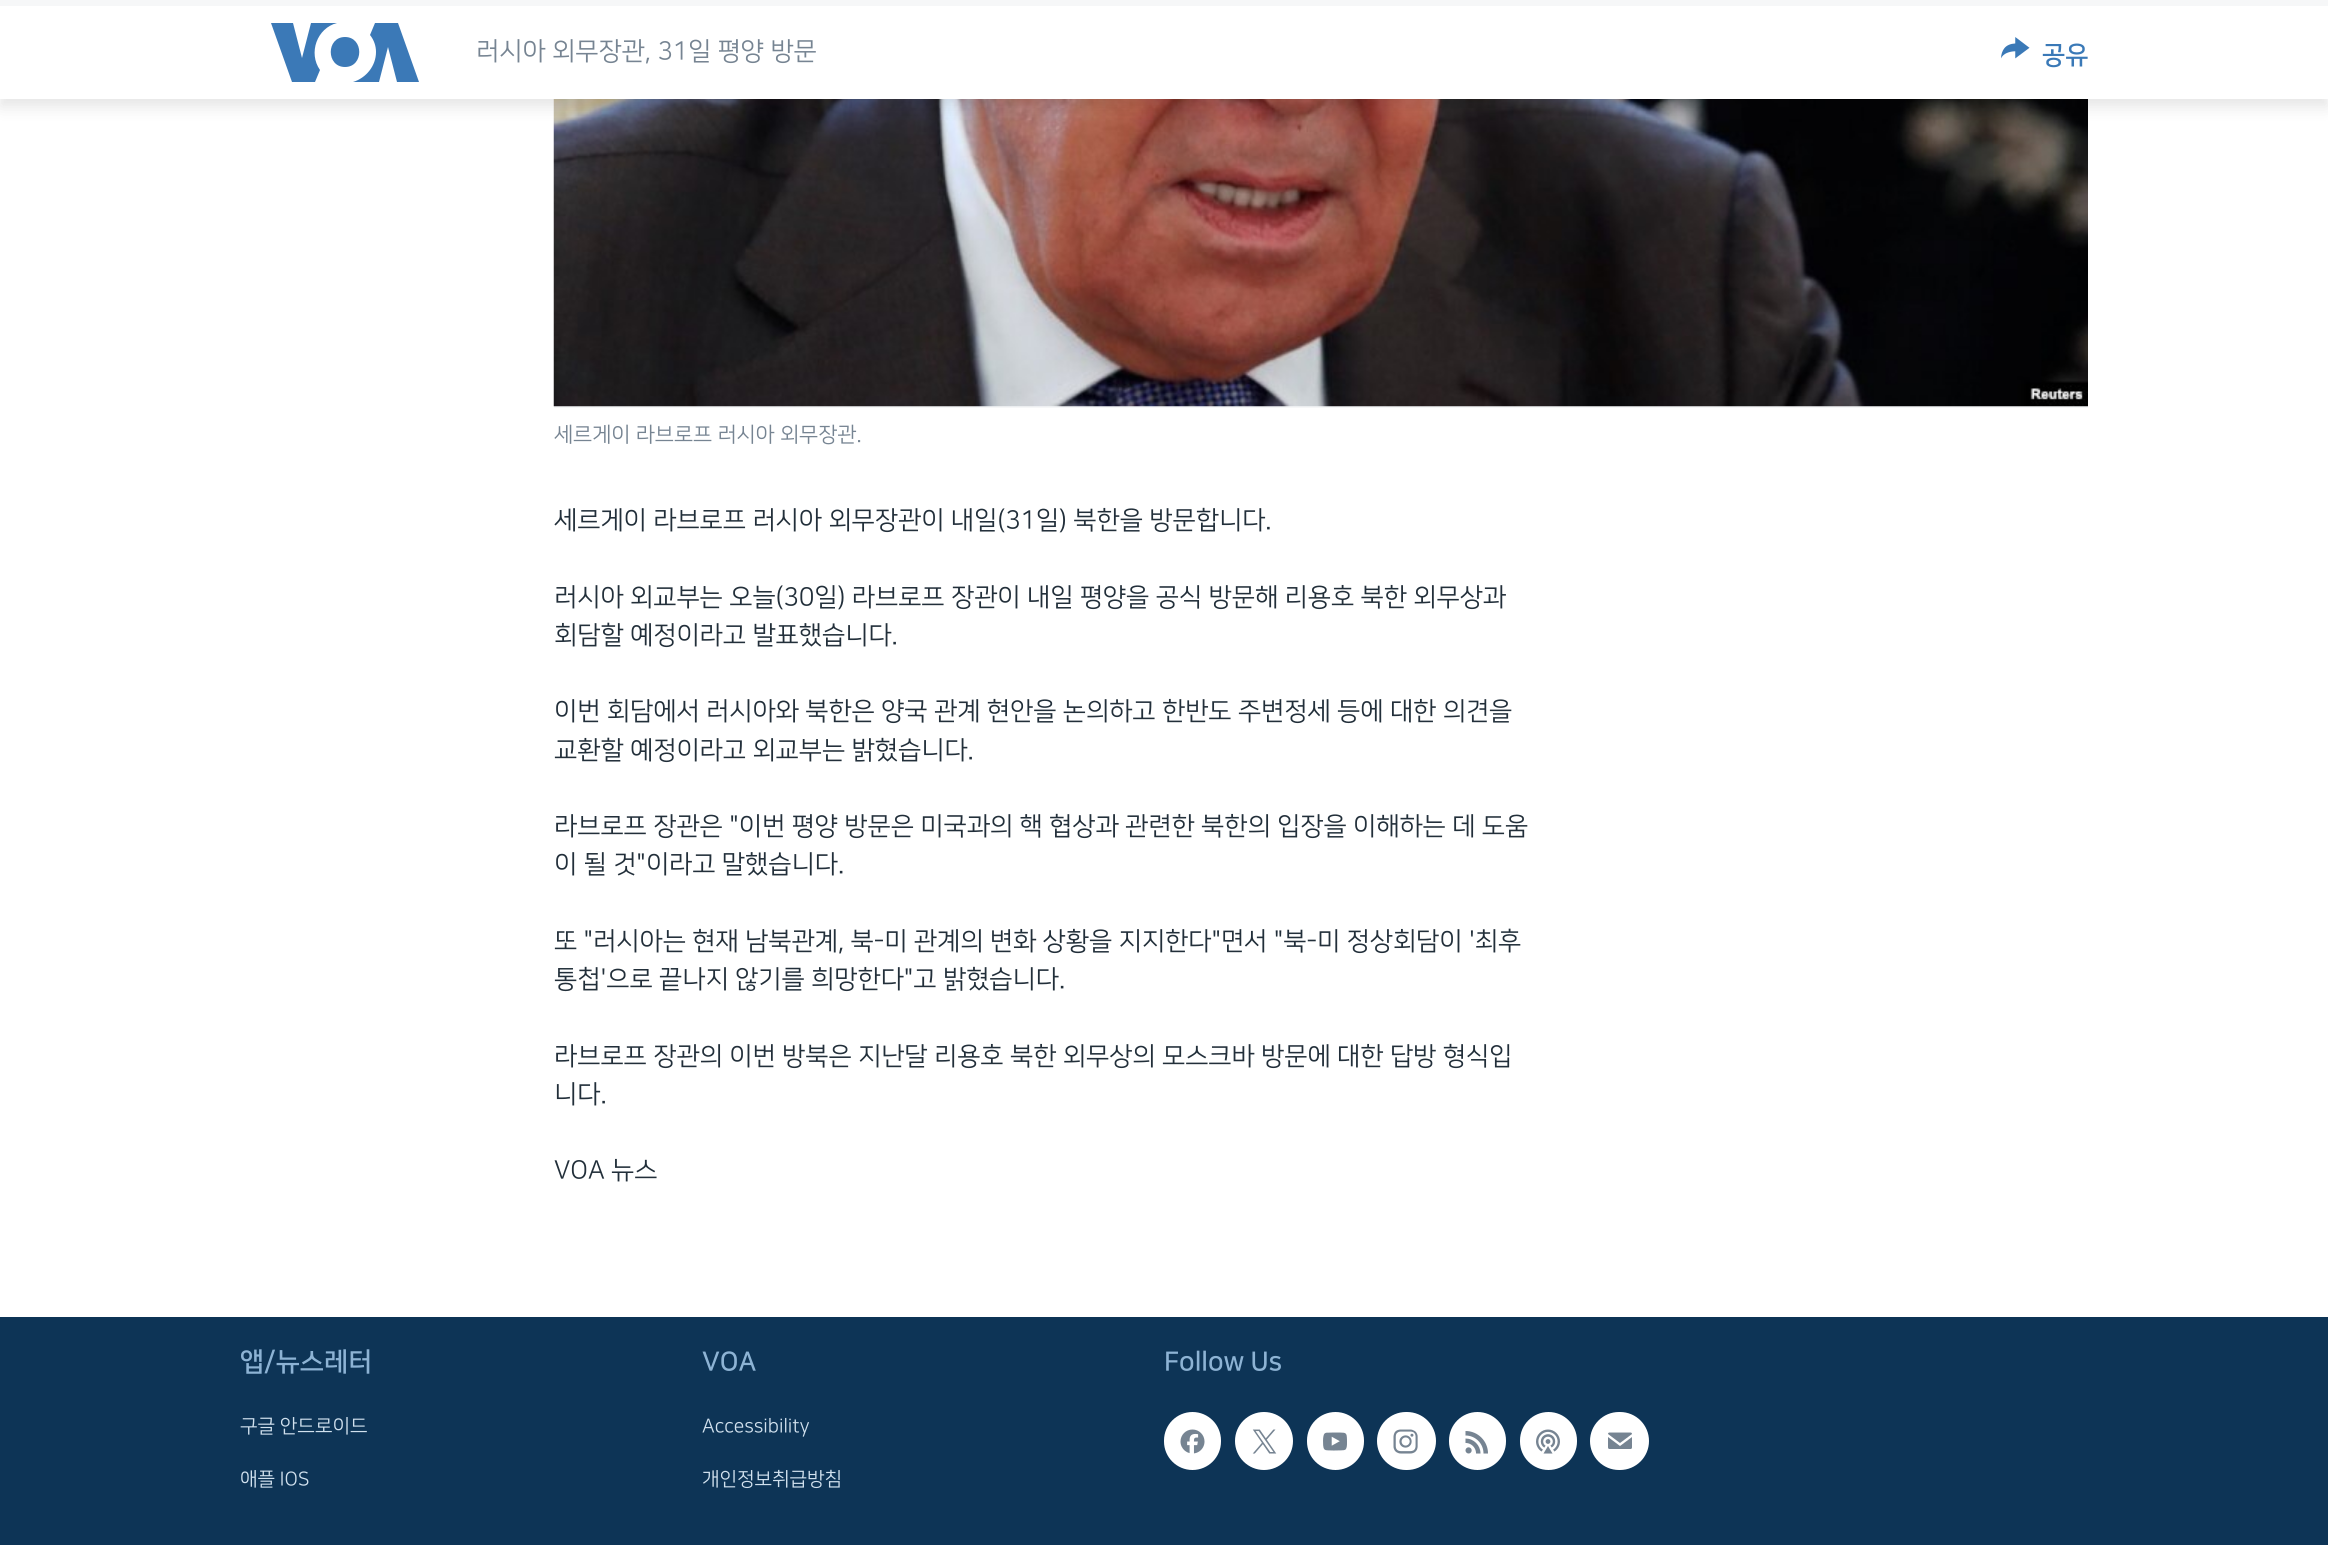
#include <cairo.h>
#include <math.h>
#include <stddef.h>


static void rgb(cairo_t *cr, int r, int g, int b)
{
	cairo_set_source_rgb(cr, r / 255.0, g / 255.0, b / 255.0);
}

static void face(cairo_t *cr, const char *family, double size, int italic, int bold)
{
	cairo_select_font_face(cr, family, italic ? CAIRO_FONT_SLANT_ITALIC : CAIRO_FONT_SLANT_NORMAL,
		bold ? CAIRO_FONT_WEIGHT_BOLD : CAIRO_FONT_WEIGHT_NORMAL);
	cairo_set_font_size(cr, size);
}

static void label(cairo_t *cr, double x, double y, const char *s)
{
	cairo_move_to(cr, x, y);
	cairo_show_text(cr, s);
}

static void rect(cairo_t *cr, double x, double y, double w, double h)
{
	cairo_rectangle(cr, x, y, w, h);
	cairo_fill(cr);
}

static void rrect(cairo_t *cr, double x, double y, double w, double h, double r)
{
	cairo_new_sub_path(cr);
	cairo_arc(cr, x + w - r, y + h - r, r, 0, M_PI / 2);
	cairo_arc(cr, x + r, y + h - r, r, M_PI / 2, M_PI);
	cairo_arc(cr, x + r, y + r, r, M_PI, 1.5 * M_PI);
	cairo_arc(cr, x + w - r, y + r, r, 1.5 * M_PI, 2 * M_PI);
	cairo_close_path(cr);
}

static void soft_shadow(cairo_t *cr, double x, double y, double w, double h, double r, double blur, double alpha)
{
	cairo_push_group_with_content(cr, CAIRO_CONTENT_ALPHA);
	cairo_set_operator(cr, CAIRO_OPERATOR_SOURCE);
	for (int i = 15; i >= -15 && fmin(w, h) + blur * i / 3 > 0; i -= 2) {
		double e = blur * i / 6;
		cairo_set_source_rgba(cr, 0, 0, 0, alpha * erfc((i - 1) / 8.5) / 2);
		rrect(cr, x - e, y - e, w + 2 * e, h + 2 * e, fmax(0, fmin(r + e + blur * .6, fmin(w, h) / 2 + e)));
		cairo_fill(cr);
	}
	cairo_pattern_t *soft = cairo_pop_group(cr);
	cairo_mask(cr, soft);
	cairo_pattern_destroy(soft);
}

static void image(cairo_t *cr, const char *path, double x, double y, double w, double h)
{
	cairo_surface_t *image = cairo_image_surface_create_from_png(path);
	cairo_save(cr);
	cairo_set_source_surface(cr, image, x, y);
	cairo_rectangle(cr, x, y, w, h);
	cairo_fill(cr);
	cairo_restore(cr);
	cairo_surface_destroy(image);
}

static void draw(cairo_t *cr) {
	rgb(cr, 255, 255, 255);
	cairo_paint(cr);
	rgb(cr, 246, 247, 248);
	rect(cr, 554, 406, 1534, 2);
	image(cr, "image1.png", 553, 99, 1535, 308);
	rgb(cr, 0, 0, 0);
	soft_shadow(cr, 0, 8, 2328, 99, 0, 7.5, 0.1);
	rgb(cr, 255, 255, 255);
	rect(cr, 0, 6, 2328, 93);
	rgb(cr, 246, 247, 248);
	rect(cr, 0, 0, 2328, 6);
	rgb(cr, 59, 121, 183);
	cairo_new_path(cr);
	cairo_move_to(cr, 320, 70);
	cairo_line_to(cr, 315, 82);
	cairo_line_to(cr, 292, 82);
	cairo_line_to(cr, 271, 23);
	cairo_line_to(cr, 293, 23);
	cairo_line_to(cr, 302, 58);
	cairo_line_to(cr, 311, 23);
	cairo_line_to(cr, 337, 23);
	cairo_curve_to(cr, 317, 28, 308, 53, 320, 70);
	cairo_close_path(cr);
	cairo_move_to(cr, 345, 37);
	cairo_curve_to(cr, 326, 37, 326, 67, 345, 67);
	cairo_curve_to(cr, 364, 67, 364, 37, 345, 37);
	cairo_close_path(cr);
	cairo_move_to(cr, 376, 52);
	cairo_curve_to(cr, 376, 66, 366, 78, 353, 82);
	cairo_line_to(cr, 379, 82);
	cairo_line_to(cr, 388, 47);
	cairo_line_to(cr, 397, 82);
	cairo_line_to(cr, 419, 82);
	cairo_line_to(cr, 398, 23);
	cairo_line_to(cr, 375, 23);
	cairo_line_to(cr, 370, 35);
	cairo_curve_to(cr, 374, 40, 376, 46, 376, 52);
	cairo_close_path(cr);
	cairo_fill(cr);
	face(cr, "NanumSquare", 25.5, 0, 0);
	rgb(cr, 118, 132, 146);
	label(cr, 476, 59, "러시아 외무장관, 31일 평양 방문");
	image(cr, "image0.png", 2001, 37, 29, 22);
	face(cr, "NanumSquare", 25.5, 0, 1);
	rgb(cr, 58, 121, 183);
	label(cr, 2042, 63, "공유");
	face(cr, "NanumSquare", 21, 0, 0);
	rgb(cr, 118, 132, 146);
	label(cr, 554, 441, "세르게이 라브로프 러시아 외무장관.");
	face(cr, "NanumSquare", 25.5, 0, 0);
	rgb(cr, 34, 47, 58);
	label(cr, 554, 528, "세르게이 라브로프 러시아 외무장관이 내일(31일) 북한을 방문합니다.");
	label(cr, 554, 605, "러시아 외교부는 오늘(30일) 라브로프 장관이 내일 평양을 공식 방문해 리용호 북한 외무상과");
	label(cr, 554, 643, "회담할 예정이라고 발표했습니다.");
	label(cr, 554, 719, "이번 회담에서 러시아와 북한은 양국 관계 현안을 논의하고 한반도 주변정세 등에 대한 의견을");
	label(cr, 554, 758, "교환할 예정이라고 외교부는 밝혔습니다.");
	label(cr, 554, 834, "라브로프 장관은 \"이번 평양 방문은 미국과의 핵 협상과 관련한 북한의 입장을 이해하는 데 도움");
	label(cr, 554, 872, "이 될 것\"이라고 말했습니다.");
	label(cr, 554, 949, "또 \"러시아는 현재 남북관계, 북-미 관계의 변화 상황을 지지한다\"면서 \"북-미 정상회담이 '최후");
	label(cr, 554, 987, "통첩'으로 끝나지 않기를 희망한다\"고 밝혔습니다.");
	label(cr, 554, 1064, "라브로프 장관의 이번 방북은 지난달 리용호 북한 외무상의 모스크바 방문에 대한 답방 형식입");
	label(cr, 554, 1102, "니다.");
	label(cr, 554, 1178, "VOA 뉴스");
	rgb(cr, 13, 52, 86);
	rect(cr, 0, 1317, 2328, 228);
	face(cr, "NanumSquare", 26.5, 0, 1);
	rgb(cr, 141, 179, 212);
	label(cr, 240, 1370, "앱/뉴스레터");
	face(cr, "NanumSquare", 19.25, 0, 0);
	rgb(cr, 209, 225, 238);
	label(cr, 240, 1432, "구글 안드로이드");
	label(cr, 240, 1485, "애플 IOS");
	face(cr, "NanumSquare", 26.5, 0, 1);
	rgb(cr, 141, 179, 212);
	label(cr, 702, 1370, "VOA");
	face(cr, "NanumSquare", 19.25, 0, 0);
	rgb(cr, 209, 225, 238);
	label(cr, 702, 1432, "Accessibility");
	label(cr, 702, 1485, "개인정보취급방침");
	face(cr, "NanumSquare", 26.5, 0, 1);
	rgb(cr, 141, 179, 212);
	label(cr, 1164, 1370, "Follow Us");
	rgb(cr, 255, 255, 255);
	rrect(cr, 1164, 1412, 57, 58, 28.5);
	cairo_fill(cr);
	image(cr, "image2.png", 1180, 1429, 25, 25);
	cairo_arc(cr, 1264, 1441, 29, 0, 2 * M_PI);
	cairo_fill(cr);
	image(cr, "image3.png", 1252, 1429, 25, 25);
	rrect(cr, 1307, 1412, 57, 58, 28.5);
	cairo_fill(cr);
	image(cr, "image4.png", 1323, 1432, 24, 19);
	rrect(cr, 1377, 1412, 59, 58, 29);
	cairo_fill(cr);
	image(cr, "image5.png", 1393, 1429, 25, 25);
	rrect(cr, 1449, 1412, 57, 58, 28.5);
	cairo_fill(cr);
	image(cr, "image6.png", 1465, 1431, 23, 23);
	rrect(cr, 1520, 1412, 57, 58, 28.5);
	cairo_fill(cr);
	image(cr, "image7.png", 1536, 1429, 24, 25);
	rrect(cr, 1590, 1412, 59, 58, 29);
	cairo_fill(cr);
	image(cr, "image8.png", 1608, 1432, 24, 17);
}

int main(void) {
	cairo_surface_t *surface = cairo_image_surface_create(CAIRO_FORMAT_RGB24, 2328, 1545);
	cairo_t *cr = cairo_create(surface);
	cairo_font_options_t *options = cairo_font_options_create();
	cairo_font_options_set_hint_metrics(options, CAIRO_HINT_METRICS_OFF);
	cairo_font_options_set_hint_style(options, CAIRO_HINT_STYLE_NONE);
	cairo_set_font_options(cr, options);
	cairo_set_miter_limit(cr, 4);
	draw(cr);
	cairo_surface_write_to_png(surface, "render.png");
	cairo_font_options_destroy(options);
	cairo_destroy(cr);
	cairo_surface_destroy(surface);
	return 0;
}
